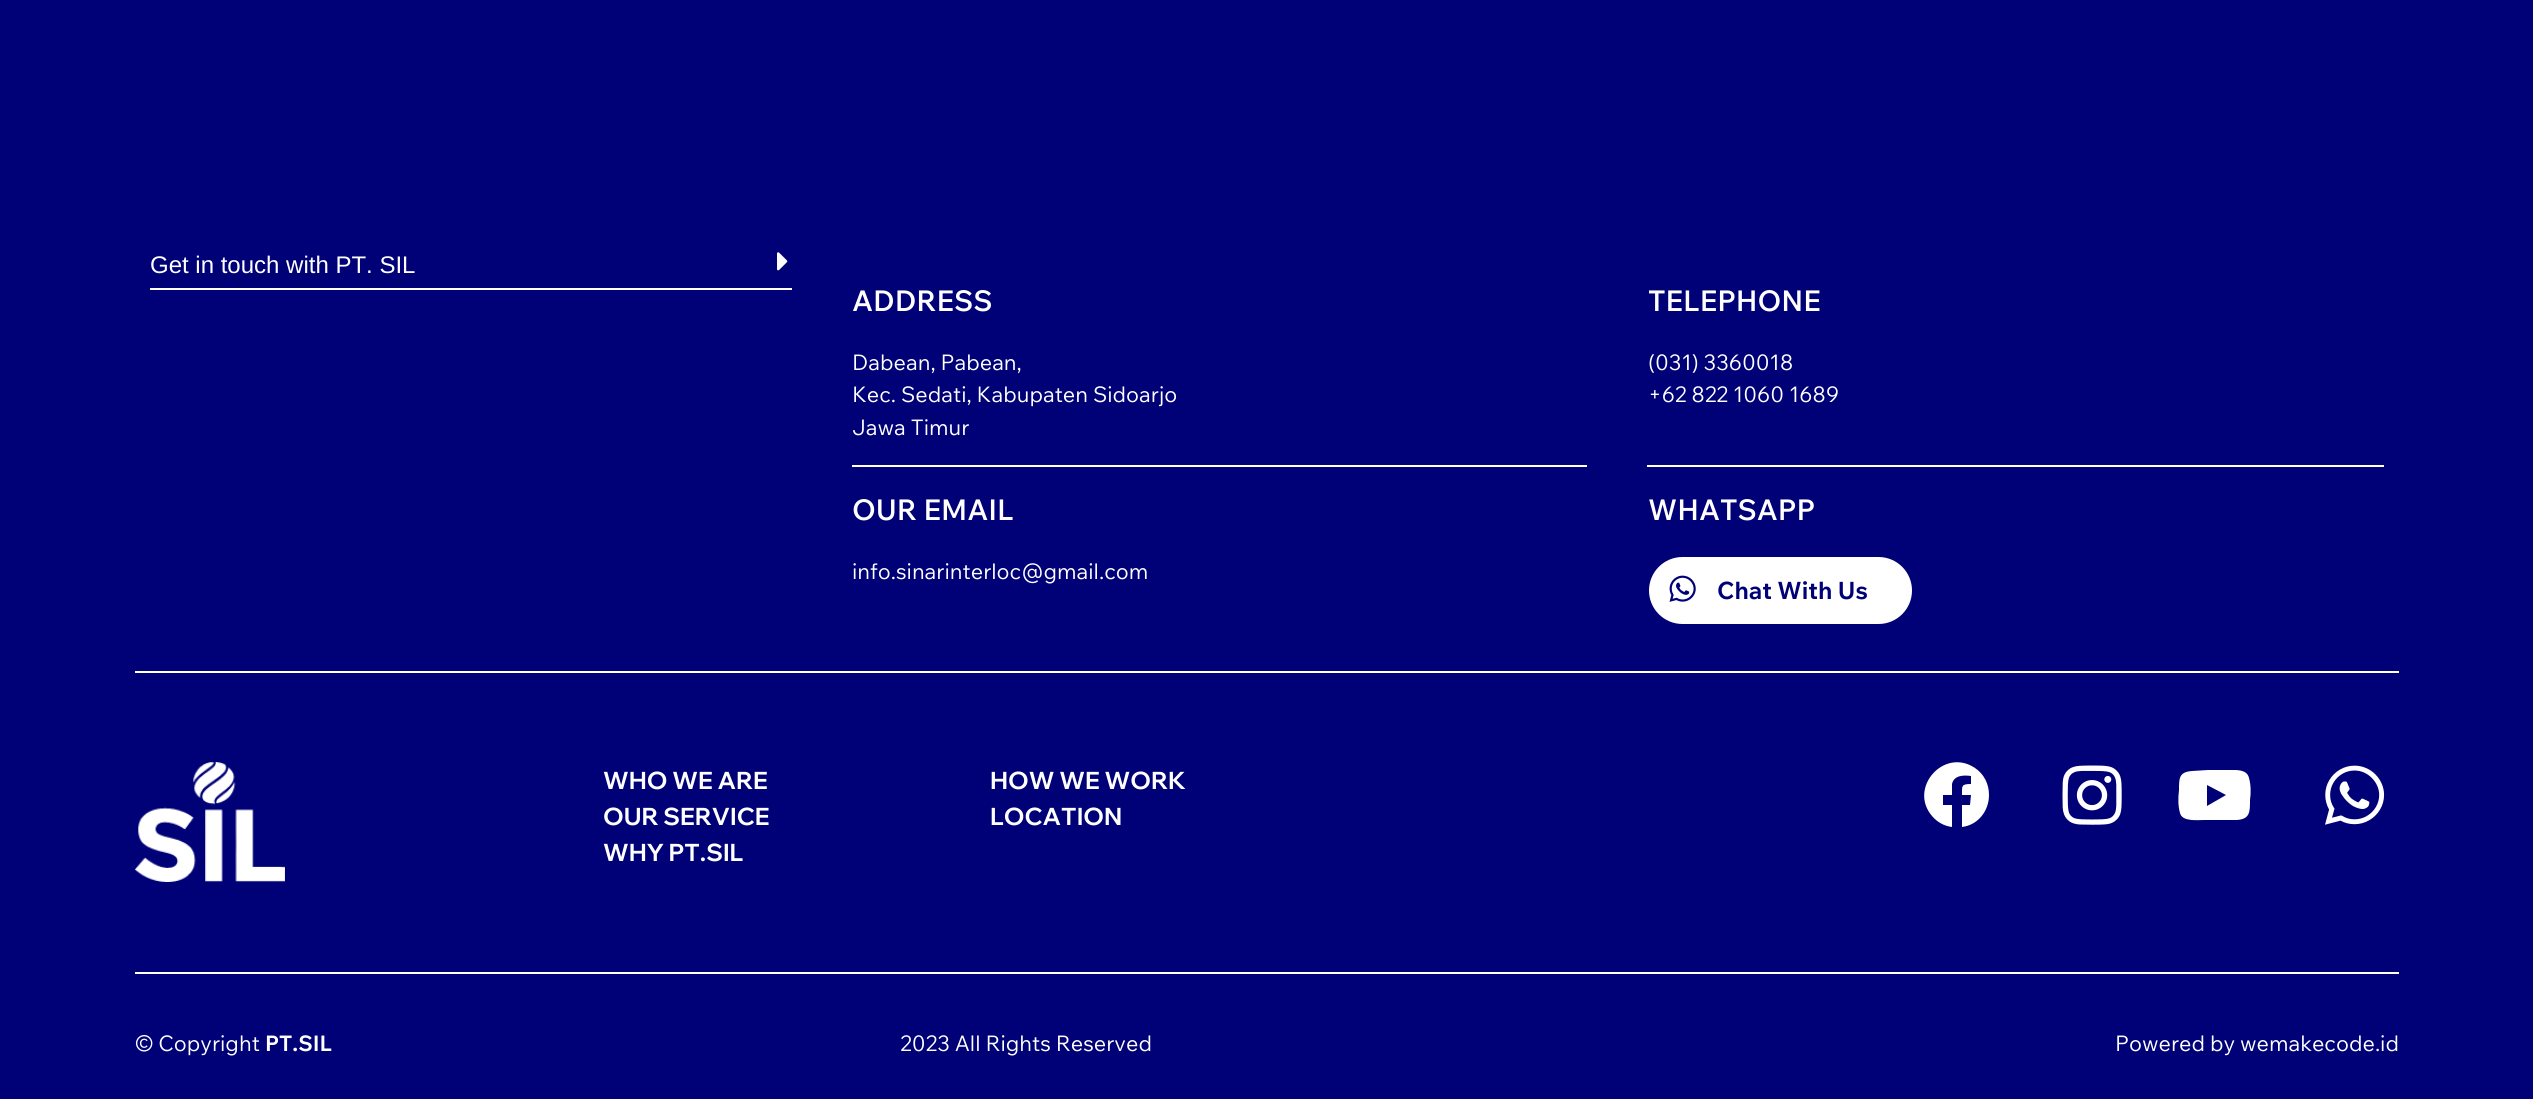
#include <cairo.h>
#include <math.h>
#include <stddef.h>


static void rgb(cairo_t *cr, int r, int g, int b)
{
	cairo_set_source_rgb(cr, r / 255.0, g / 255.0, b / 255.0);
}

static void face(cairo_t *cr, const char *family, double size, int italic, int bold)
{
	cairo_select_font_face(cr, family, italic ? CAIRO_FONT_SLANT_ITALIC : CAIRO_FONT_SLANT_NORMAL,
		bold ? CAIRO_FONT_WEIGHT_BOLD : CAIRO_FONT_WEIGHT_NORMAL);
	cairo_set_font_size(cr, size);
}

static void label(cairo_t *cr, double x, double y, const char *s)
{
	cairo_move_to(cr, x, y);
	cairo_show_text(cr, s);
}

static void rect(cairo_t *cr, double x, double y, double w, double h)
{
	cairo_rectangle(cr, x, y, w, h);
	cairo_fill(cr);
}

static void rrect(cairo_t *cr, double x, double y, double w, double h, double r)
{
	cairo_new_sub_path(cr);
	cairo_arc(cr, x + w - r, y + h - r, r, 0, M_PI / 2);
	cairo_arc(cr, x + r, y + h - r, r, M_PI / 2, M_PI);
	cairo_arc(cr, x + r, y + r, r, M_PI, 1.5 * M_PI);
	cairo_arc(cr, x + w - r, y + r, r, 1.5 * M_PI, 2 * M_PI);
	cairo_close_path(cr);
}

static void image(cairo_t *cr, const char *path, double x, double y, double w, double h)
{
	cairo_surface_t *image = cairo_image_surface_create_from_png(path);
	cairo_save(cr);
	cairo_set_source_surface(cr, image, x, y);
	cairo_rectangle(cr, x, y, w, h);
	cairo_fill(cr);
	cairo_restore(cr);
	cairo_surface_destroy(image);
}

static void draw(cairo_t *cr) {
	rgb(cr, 0, 0, 119);
	cairo_paint(cr);
	rgb(cr, 255, 255, 255);
	rect(cr, 135, 671, 2264, 2);
	face(cr, "Liberation Sans", 24, 0, 0);
	label(cr, 150, 273, "Get in touch with PT. SIL");
	image(cr, "image0.png", 777, 252, 11, 19);
	rect(cr, 150, 288, 642, 2);
	face(cr, "Wix Madefor Text SemiBold", 28.75, 0, 0);
	label(cr, 852, 311, "ADDRESS");
	rect(cr, 852, 465, 735, 2);
	face(cr, "Wix Madefor Text", 21.6, 0, 0);
	label(cr, 852, 370, "Dabean, Pabean,");
	label(cr, 852, 402, "Kec. Sedati, Kabupaten Sidoarjo");
	label(cr, 852, 435, "Jawa Timur");
	face(cr, "Wix Madefor Text SemiBold", 28.75, 0, 0);
	label(cr, 852, 520, "OUR EMAIL");
	face(cr, "Wix Madefor Text", 21.6, 0, 0);
	label(cr, 852, 579, "info.sinarinterloc@gmail.com");
	face(cr, "Wix Madefor Text SemiBold", 28.75, 0, 0);
	label(cr, 1648, 311, "TELEPHONE");
	rect(cr, 1647, 465, 737, 2);
	face(cr, "Wix Madefor Text", 21.6, 0, 0);
	label(cr, 1648, 370, "(031) 3360018");
	label(cr, 1648, 402, "+62 822 1060 1689");
	face(cr, "Wix Madefor Text SemiBold", 28.75, 0, 0);
	label(cr, 1648, 520, "WHATSAPP");
	rrect(cr, 1648, 556, 265, 69, 34.5);
	cairo_fill_preserve(cr);
	rgb(cr, 0, 0, 119);
	cairo_stroke(cr);
	image(cr, "image1.png", 1669, 575, 27, 27);
	face(cr, "Wix Madefor Text", 24, 0, 1);
	label(cr, 1717, 599, "Chat With Us");
	rgb(cr, 255, 255, 255);
	rect(cr, 135, 972, 2264, 2);
	image(cr, "image2.png", 135, 762, 150, 120);
	face(cr, "Wix Madefor Display", 24, 0, 1);
	label(cr, 603, 789, "WHO WE ARE");
	label(cr, 990, 789, "HOW WE WORK");
	label(cr, 603, 825, "OUR SERVICE");
	label(cr, 990, 825, "LOCATION");
	label(cr, 603, 861, "WHY PT.SIL");
	cairo_new_path(cr);
	cairo_move_to(cr, 1989, 795);
	cairo_curve_to(cr, 1989, 811, 1978, 825, 1962, 827);
	cairo_line_to(cr, 1962, 805);
	cairo_line_to(cr, 1970, 805);
	cairo_line_to(cr, 1971, 795);
	cairo_line_to(cr, 1962, 795);
	cairo_curve_to(cr, 1962, 786, 1961, 784, 1971, 784);
	cairo_line_to(cr, 1971, 776);
	cairo_curve_to(cr, 1964, 775, 1954, 775, 1952, 784);
	cairo_line_to(cr, 1952, 795);
	cairo_line_to(cr, 1943, 795);
	cairo_line_to(cr, 1943, 805);
	cairo_line_to(cr, 1952, 805);
	cairo_line_to(cr, 1952, 827);
	cairo_curve_to(cr, 1944, 826, 1937, 822, 1932, 816);
	cairo_curve_to(cr, 1908, 788, 1944, 747, 1975, 768);
	cairo_curve_to(cr, 1984, 774, 1989, 784, 1989, 795);
	cairo_close_path(cr);
	cairo_fill(cr);
	image(cr, "image3.png", 2062, 765, 60, 60);
	cairo_new_path(cr);
	cairo_move_to(cr, 2249, 778);
	cairo_curve_to(cr, 2251, 785, 2251, 793, 2250, 800);
	cairo_curve_to(cr, 2250, 812, 2250, 819, 2237, 820);
	cairo_line_to(cr, 2204, 820);
	cairo_curve_to(cr, 2198, 820, 2182, 822, 2180, 813);
	cairo_curve_to(cr, 2178, 806, 2178, 798, 2179, 790);
	cairo_curve_to(cr, 2179, 778, 2179, 772, 2192, 771);
	cairo_line_to(cr, 2208, 770);
	cairo_line_to(cr, 2229, 770);
	cairo_curve_to(cr, 2236, 770, 2247, 769, 2249, 778);
	cairo_close_path(cr);
	cairo_move_to(cr, 2207, 806);
	cairo_line_to(cr, 2226, 795);
	cairo_line_to(cr, 2207, 785);
	cairo_close_path(cr);
	cairo_fill(cr);
	image(cr, "image4.png", 2325, 765, 60, 60);
	face(cr, "Wix Madefor Text", 21.6, 0, 0);
	label(cr, 135, 1051, "© Copyright");
	face(cr, "Wix Madefor Text", 21.6, 0, 1);
	label(cr, 265, 1051, "PT.SIL");
	face(cr, "Wix Madefor Text", 21.6, 0, 0);
	label(cr, 900, 1051, "2023 All Rights Reserved");
	label(cr, 2115, 1051, "Powered by wemakecode.id");
}

int main(void) {
	cairo_surface_t *surface = cairo_image_surface_create(CAIRO_FORMAT_RGB24, 2533, 1099);
	cairo_t *cr = cairo_create(surface);
	cairo_font_options_t *options = cairo_font_options_create();
	cairo_font_options_set_hint_metrics(options, CAIRO_HINT_METRICS_OFF);
	cairo_font_options_set_hint_style(options, CAIRO_HINT_STYLE_NONE);
	cairo_set_font_options(cr, options);
	cairo_set_miter_limit(cr, 4);
	draw(cr);
	cairo_surface_write_to_png(surface, "render.png");
	cairo_font_options_destroy(options);
	cairo_destroy(cr);
	cairo_surface_destroy(surface);
	return 0;
}
